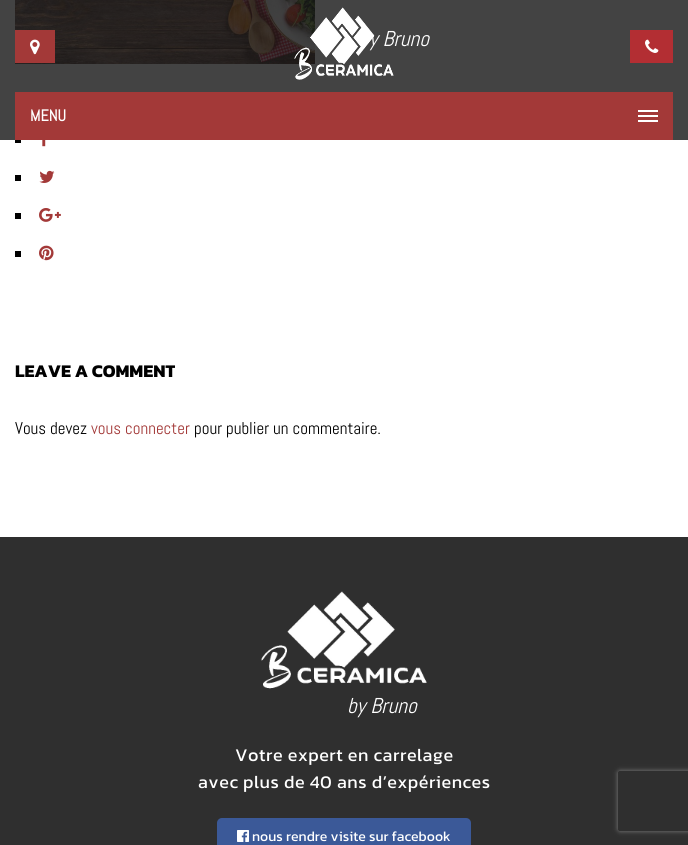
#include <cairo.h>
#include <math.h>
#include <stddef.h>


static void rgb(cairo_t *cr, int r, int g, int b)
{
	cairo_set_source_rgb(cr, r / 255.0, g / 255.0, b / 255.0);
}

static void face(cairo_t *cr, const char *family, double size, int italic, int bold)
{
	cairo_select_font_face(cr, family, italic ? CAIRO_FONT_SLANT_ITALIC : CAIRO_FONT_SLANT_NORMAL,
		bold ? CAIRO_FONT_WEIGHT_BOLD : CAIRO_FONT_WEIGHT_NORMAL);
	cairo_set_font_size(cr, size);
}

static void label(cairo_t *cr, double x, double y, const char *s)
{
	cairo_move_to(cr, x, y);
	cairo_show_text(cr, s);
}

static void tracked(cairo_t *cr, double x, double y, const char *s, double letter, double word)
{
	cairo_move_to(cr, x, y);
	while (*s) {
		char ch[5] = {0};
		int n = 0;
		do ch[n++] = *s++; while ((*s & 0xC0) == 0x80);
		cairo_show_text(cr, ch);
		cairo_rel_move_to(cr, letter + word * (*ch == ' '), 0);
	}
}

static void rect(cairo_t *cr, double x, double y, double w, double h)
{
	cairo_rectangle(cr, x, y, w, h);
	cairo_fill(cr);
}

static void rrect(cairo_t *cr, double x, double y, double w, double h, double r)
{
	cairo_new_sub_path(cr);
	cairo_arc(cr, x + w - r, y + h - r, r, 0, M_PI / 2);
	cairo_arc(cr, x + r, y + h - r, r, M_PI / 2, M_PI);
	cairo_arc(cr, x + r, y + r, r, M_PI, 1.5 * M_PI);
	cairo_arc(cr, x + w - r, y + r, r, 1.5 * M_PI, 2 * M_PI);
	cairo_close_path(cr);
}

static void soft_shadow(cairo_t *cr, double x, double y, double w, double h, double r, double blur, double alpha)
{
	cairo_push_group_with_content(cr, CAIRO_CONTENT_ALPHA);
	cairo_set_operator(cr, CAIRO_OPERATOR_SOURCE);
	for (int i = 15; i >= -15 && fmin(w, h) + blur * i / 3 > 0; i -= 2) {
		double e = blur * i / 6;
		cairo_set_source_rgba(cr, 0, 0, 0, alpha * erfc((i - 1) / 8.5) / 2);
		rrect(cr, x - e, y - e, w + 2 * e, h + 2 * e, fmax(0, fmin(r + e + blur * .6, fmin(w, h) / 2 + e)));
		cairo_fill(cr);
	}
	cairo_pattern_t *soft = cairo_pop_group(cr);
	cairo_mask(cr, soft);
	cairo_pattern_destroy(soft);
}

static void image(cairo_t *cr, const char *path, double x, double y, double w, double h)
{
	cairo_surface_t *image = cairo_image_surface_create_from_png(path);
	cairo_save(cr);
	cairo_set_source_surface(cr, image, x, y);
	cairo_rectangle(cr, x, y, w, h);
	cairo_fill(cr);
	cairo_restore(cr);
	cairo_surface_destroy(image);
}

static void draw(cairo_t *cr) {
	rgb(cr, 255, 255, 255);
	cairo_paint(cr);
	image(cr, "image3.png", 15, 0, 300, 64);
	cairo_set_source_rgba(cr, 0.102, 0.102, 0.102, 0.82);
	rect(cr, 0, 0, 688, 140);
	rgb(cr, 163, 57, 56);
	rect(cr, 15, 30, 40, 33);
	image(cr, "image0.png", 30, 39, 10, 16);
	image(cr, "image1.png", 294, 7, 100, 73);
	face(cr, "Abel", 21.5, 1, 0);
	rgb(cr, 255, 255, 255);
	label(cr, 369, 46, "y Bruno");
	rgb(cr, 179, 46, 51);
	rect(cr, 630, 30, 43, 33);
	image(cr, "image2.png", 645, 39, 14, 14);
	rgb(cr, 163, 57, 56);
	rect(cr, 15, 92, 658, 48);
	face(cr, "Abel", 16, 0, 1);
	rgb(cr, 255, 255, 255);
	label(cr, 30, 121, "MENU");
	rect(cr, 638, 115, 20, 2);
	rect(cr, 638, 110, 20, 2);
	rect(cr, 638, 120, 20, 2);
	rgb(cr, 0, 0, 0);
	rect(cr, 15, 140, 6, 3);
	image(cr, "image4.png", 42, 140, 4, 7);
	rect(cr, 15, 175, 6, 6);
	image(cr, "image5.png", 39, 170, 16, 13);
	rect(cr, 15, 213, 6, 6);
	image(cr, "image6.png", 39, 208, 22, 14);
	rect(cr, 15, 251, 6, 6);
	image(cr, "image7.png", 39, 245, 15, 16);
	face(cr, "Kanit", 18, 0, 1);
	label(cr, 15, 377, "LEAVE A COMMENT");
	face(cr, "Abel", 17, 0, 0);
	label(cr, 15, 434, "Vous devez");
	rgb(cr, 163, 57, 56);
	label(cr, 91, 434, "vous connecter");
	rgb(cr, 0, 0, 0);
	label(cr, 194, 434, "pour publier un commentaire.");
	rgb(cr, 47, 47, 47);
	rect(cr, 0, 537, 688, 308);
	image(cr, "image8.png", 261, 591, 166, 98);
	face(cr, "Abel", 21.5, 1, 0);
	rgb(cr, 255, 255, 255);
	label(cr, 347, 713, "by Bruno");
	face(cr, "Kanit", 18, 0, 0);
	tracked(cr, 235, 761, "Votre expert en carrelage", 0.5, 0);
	tracked(cr, 198, 788, "avec plus de 40 ans d’expériences", 0.5, 0);
	rgb(cr, 59, 89, 152);
	rrect(cr, 217, 818, 254, 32, 5);
	cairo_fill(cr);
	image(cr, "image9.png", 237, 830, 12, 12);
	face(cr, "Kanit", 14, 0, 0);
	rgb(cr, 255, 255, 255);
	label(cr, 252, 841, "nous rendre visite sur facebook");
	cairo_save(cr);
	cairo_set_fill_rule(cr, CAIRO_FILL_RULE_EVEN_ODD);
	cairo_new_path(cr);
	cairo_move_to(cr, 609, 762);
	cairo_line_to(cr, 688, 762);
	cairo_line_to(cr, 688, 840);
	cairo_line_to(cr, 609, 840);
	cairo_close_path(cr);
	cairo_move_to(cr, 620, 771);
	cairo_line_to(cr, 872, 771);
	cairo_curve_to(cr, 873, 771, 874, 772, 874, 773);
	cairo_line_to(cr, 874, 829);
	cairo_curve_to(cr, 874, 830, 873, 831, 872, 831);
	cairo_line_to(cr, 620, 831);
	cairo_curve_to(cr, 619, 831, 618, 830, 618, 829);
	cairo_line_to(cr, 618, 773);
	cairo_curve_to(cr, 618, 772, 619, 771, 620, 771);
	cairo_close_path(cr);
	cairo_clip(cr);
	rgb(cr, 128, 128, 128);
	soft_shadow(cr, 618, 771, 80, 60, 2, 2.5, 1);
	cairo_restore(cr);
}

int main(void) {
	cairo_surface_t *surface = cairo_image_surface_create(CAIRO_FORMAT_RGB24, 688, 845);
	cairo_t *cr = cairo_create(surface);
	cairo_font_options_t *options = cairo_font_options_create();
	cairo_font_options_set_hint_metrics(options, CAIRO_HINT_METRICS_OFF);
	cairo_font_options_set_hint_style(options, CAIRO_HINT_STYLE_NONE);
	cairo_set_font_options(cr, options);
	cairo_set_miter_limit(cr, 4);
	draw(cr);
	cairo_surface_write_to_png(surface, "render.png");
	cairo_font_options_destroy(options);
	cairo_destroy(cr);
	cairo_surface_destroy(surface);
	return 0;
}
